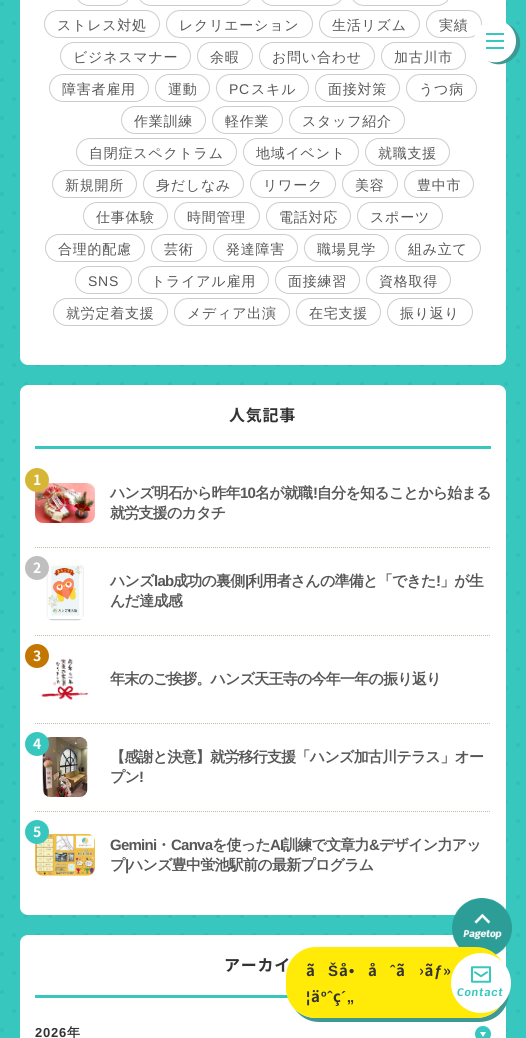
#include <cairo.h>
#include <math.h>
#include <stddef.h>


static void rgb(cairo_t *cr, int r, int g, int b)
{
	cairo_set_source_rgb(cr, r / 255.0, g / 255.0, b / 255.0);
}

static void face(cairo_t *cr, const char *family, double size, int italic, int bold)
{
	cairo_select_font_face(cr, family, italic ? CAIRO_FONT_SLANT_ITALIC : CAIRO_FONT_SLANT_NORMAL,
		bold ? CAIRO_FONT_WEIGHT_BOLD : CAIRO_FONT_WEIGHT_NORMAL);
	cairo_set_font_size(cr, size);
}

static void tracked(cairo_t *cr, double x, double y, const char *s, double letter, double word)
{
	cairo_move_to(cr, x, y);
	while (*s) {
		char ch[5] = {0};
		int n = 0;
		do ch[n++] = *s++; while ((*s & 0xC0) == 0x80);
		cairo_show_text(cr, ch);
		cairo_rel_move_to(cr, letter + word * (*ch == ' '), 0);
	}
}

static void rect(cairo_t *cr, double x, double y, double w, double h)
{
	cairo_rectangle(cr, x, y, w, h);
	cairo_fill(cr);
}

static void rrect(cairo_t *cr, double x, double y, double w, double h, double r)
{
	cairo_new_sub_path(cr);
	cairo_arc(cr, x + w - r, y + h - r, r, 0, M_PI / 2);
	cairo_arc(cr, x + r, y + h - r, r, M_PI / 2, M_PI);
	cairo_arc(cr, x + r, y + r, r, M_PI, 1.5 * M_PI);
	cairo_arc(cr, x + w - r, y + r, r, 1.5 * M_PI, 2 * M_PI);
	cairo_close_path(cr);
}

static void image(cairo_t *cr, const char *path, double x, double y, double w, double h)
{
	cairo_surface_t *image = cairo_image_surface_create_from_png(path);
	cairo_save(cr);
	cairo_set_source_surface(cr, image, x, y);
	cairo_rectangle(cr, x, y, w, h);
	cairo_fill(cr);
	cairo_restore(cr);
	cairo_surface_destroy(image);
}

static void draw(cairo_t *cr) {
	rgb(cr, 56, 199, 191);
	cairo_paint(cr);
	image(cr, "image0.png", 0, 2, 520, 1030);
	rgb(cr, 255, 255, 255);
	rrect(cr, 20, -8, 486, 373, 8);
	cairo_fill(cr);
	rrect(cr, 75.5, -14.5, 55, 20, 13.5);
	rgb(cr, 204, 204, 204);
	cairo_set_line_width(cr, 1);
	cairo_stroke(cr);
	rrect(cr, 137.5, -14.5, 115, 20, 13.5);
	cairo_stroke(cr);
	rrect(cr, 259.5, -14.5, 84, 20, 13.5);
	cairo_stroke(cr);
	rrect(cr, 350.5, -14.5, 100, 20, 13.5);
	cairo_stroke(cr);
	rrect(cr, 44.5, 10.5, 115, 27, 13.5);
	cairo_stroke(cr);
	face(cr, "WenQuanYi Zen Hei Medium", 14, 0, 0);
	rgb(cr, 88, 87, 87);
	tracked(cr, 57, 30, "ストレス対処", 0.75, 0);
	rrect(cr, 166.5, 10.5, 146, 27, 13.5);
	rgb(cr, 204, 204, 204);
	cairo_stroke(cr);
	rgb(cr, 88, 87, 87);
	tracked(cr, 179, 30, "レクリエーション", 0.75, 0);
	rrect(cr, 319.5, 10.5, 100, 27, 13.5);
	rgb(cr, 204, 204, 204);
	cairo_stroke(cr);
	rgb(cr, 88, 87, 87);
	tracked(cr, 332, 30, "生活リズム", 0.75, 0);
	rrect(cr, 426.5, 10.5, 55, 27, 13.5);
	rgb(cr, 204, 204, 204);
	cairo_stroke(cr);
	rgb(cr, 88, 87, 87);
	tracked(cr, 439, 30, "実績", 0.75, 0);
	rrect(cr, 60.5, 42.5, 130, 27, 13.5);
	rgb(cr, 204, 204, 204);
	cairo_stroke(cr);
	rgb(cr, 88, 87, 87);
	tracked(cr, 73, 62, "ビジネスマナー", 0.75, 0);
	rrect(cr, 197.5, 42.5, 55, 27, 13.5);
	rgb(cr, 204, 204, 204);
	cairo_stroke(cr);
	rgb(cr, 88, 87, 87);
	tracked(cr, 210, 62, "余暇", 0.75, 0);
	rrect(cr, 259.5, 42.5, 115, 27, 13.5);
	rgb(cr, 204, 204, 204);
	cairo_stroke(cr);
	rgb(cr, 88, 87, 87);
	tracked(cr, 272, 62, "お問い合わせ", 0.75, 0);
	rrect(cr, 381.5, 42.5, 84, 27, 13.5);
	rgb(cr, 204, 204, 204);
	cairo_stroke(cr);
	rgb(cr, 88, 87, 87);
	tracked(cr, 394, 62, "加古川市", 0.75, 0);
	rrect(cr, 49.5, 74.5, 99, 27, 13.5);
	rgb(cr, 204, 204, 204);
	cairo_stroke(cr);
	rgb(cr, 88, 87, 87);
	tracked(cr, 62, 94, "障害者雇用", 0.75, 0);
	rrect(cr, 155.5, 74.5, 54, 27, 13.5);
	rgb(cr, 204, 204, 204);
	cairo_stroke(cr);
	rgb(cr, 88, 87, 87);
	tracked(cr, 168, 94, "運動", 0.75, 0);
	rrect(cr, 216.5, 74.5, 92, 27, 13.5);
	rgb(cr, 204, 204, 204);
	cairo_stroke(cr);
	face(cr, "Liberation Sans", 14, 0, 0);
	rgb(cr, 88, 87, 87);
	tracked(cr, 229, 94, "PC", 0.75, 0);
	face(cr, "WenQuanYi Zen Hei Medium", 14, 0, 0);
	tracked(cr, 251, 94, "スキル", 0.75, 0);
	rrect(cr, 315.5, 74.5, 84, 27, 13.5);
	rgb(cr, 204, 204, 204);
	cairo_stroke(cr);
	rgb(cr, 88, 87, 87);
	tracked(cr, 328, 94, "面接対策", 0.75, 0);
	rrect(cr, 406.5, 74.5, 70, 27, 13.5);
	rgb(cr, 204, 204, 204);
	cairo_stroke(cr);
	rgb(cr, 88, 87, 87);
	tracked(cr, 419, 94, "うつ病", 0.75, 0);
	rrect(cr, 121.5, 106.5, 84, 27, 13.5);
	rgb(cr, 204, 204, 204);
	cairo_stroke(cr);
	rgb(cr, 88, 87, 87);
	tracked(cr, 134, 126, "作業訓練", 0.75, 0);
	rrect(cr, 212.5, 106.5, 70, 27, 13.5);
	rgb(cr, 204, 204, 204);
	cairo_stroke(cr);
	rgb(cr, 88, 87, 87);
	tracked(cr, 225, 126, "軽作業", 0.75, 0);
	rrect(cr, 289.5, 106.5, 115, 27, 13.5);
	rgb(cr, 204, 204, 204);
	cairo_stroke(cr);
	rgb(cr, 88, 87, 87);
	tracked(cr, 302, 126, "スタッフ紹介", 0.75, 0);
	rrect(cr, 76.5, 138.5, 160, 27, 13.5);
	rgb(cr, 204, 204, 204);
	cairo_stroke(cr);
	rgb(cr, 88, 87, 87);
	tracked(cr, 89, 158, "自閉症スペクトラム", 0.75, 0);
	rrect(cr, 243.5, 138.5, 115, 27, 13.5);
	rgb(cr, 204, 204, 204);
	cairo_stroke(cr);
	rgb(cr, 88, 87, 87);
	tracked(cr, 256, 158, "地域イベント", 0.75, 0);
	rrect(cr, 365.5, 138.5, 84, 27, 13.5);
	rgb(cr, 204, 204, 204);
	cairo_stroke(cr);
	rgb(cr, 88, 87, 87);
	tracked(cr, 378, 158, "就職支援", 0.75, 0);
	rrect(cr, 52.5, 170.5, 84, 27, 13.5);
	rgb(cr, 204, 204, 204);
	cairo_stroke(cr);
	rgb(cr, 88, 87, 87);
	tracked(cr, 65, 190, "新規開所", 0.75, 0);
	rrect(cr, 143.5, 170.5, 100, 27, 13.5);
	rgb(cr, 204, 204, 204);
	cairo_stroke(cr);
	rgb(cr, 88, 87, 87);
	tracked(cr, 156, 190, "身だしなみ", 0.75, 0);
	rrect(cr, 250.5, 170.5, 85, 27, 13.5);
	rgb(cr, 204, 204, 204);
	cairo_stroke(cr);
	rgb(cr, 88, 87, 87);
	tracked(cr, 263, 190, "リワーク", 0.75, 0);
	rrect(cr, 342.5, 170.5, 55, 27, 13.5);
	rgb(cr, 204, 204, 204);
	cairo_stroke(cr);
	rgb(cr, 88, 87, 87);
	tracked(cr, 355, 190, "美容", 0.75, 0);
	rrect(cr, 404.5, 170.5, 69, 27, 13.5);
	rgb(cr, 204, 204, 204);
	cairo_stroke(cr);
	rgb(cr, 88, 87, 87);
	tracked(cr, 417, 190, "豊中市", 0.75, 0);
	rrect(cr, 83.5, 202.5, 84, 27, 13.5);
	rgb(cr, 204, 204, 204);
	cairo_stroke(cr);
	rgb(cr, 88, 87, 87);
	tracked(cr, 96, 222, "仕事体験", 0.75, 0);
	rrect(cr, 174.5, 202.5, 85, 27, 13.5);
	rgb(cr, 204, 204, 204);
	cairo_stroke(cr);
	rgb(cr, 88, 87, 87);
	tracked(cr, 187, 222, "時間管理", 0.75, 0);
	rrect(cr, 266.5, 202.5, 84, 27, 13.5);
	rgb(cr, 204, 204, 204);
	cairo_stroke(cr);
	rgb(cr, 88, 87, 87);
	tracked(cr, 279, 222, "電話対応", 0.75, 0);
	rrect(cr, 357.5, 202.5, 85, 27, 13.5);
	rgb(cr, 204, 204, 204);
	cairo_stroke(cr);
	rgb(cr, 88, 87, 87);
	tracked(cr, 370, 222, "スポーツ", 0.75, 0);
	rrect(cr, 45.5, 234.5, 99, 27, 13.5);
	rgb(cr, 204, 204, 204);
	cairo_stroke(cr);
	rgb(cr, 88, 87, 87);
	tracked(cr, 58, 254, "合理的配慮", 0.75, 0);
	rrect(cr, 151.5, 234.5, 55, 27, 13.5);
	rgb(cr, 204, 204, 204);
	cairo_stroke(cr);
	rgb(cr, 88, 87, 87);
	tracked(cr, 164, 254, "芸術", 0.75, 0);
	rrect(cr, 213.5, 234.5, 84, 27, 13.5);
	rgb(cr, 204, 204, 204);
	cairo_stroke(cr);
	rgb(cr, 88, 87, 87);
	tracked(cr, 226, 254, "発達障害", 0.75, 0);
	rrect(cr, 304.5, 234.5, 84, 27, 13.5);
	rgb(cr, 204, 204, 204);
	cairo_stroke(cr);
	rgb(cr, 88, 87, 87);
	tracked(cr, 317, 254, "職場見学", 0.75, 0);
	rrect(cr, 395.5, 234.5, 85, 27, 13.5);
	rgb(cr, 204, 204, 204);
	cairo_stroke(cr);
	rgb(cr, 88, 87, 87);
	tracked(cr, 408, 254, "組み立て", 0.75, 0);
	rrect(cr, 75.5, 266.5, 56, 27, 13.5);
	rgb(cr, 204, 204, 204);
	cairo_stroke(cr);
	face(cr, "Liberation Sans", 14, 0, 0);
	rgb(cr, 88, 87, 87);
	tracked(cr, 88, 286, "SNS", 0.75, 0);
	rrect(cr, 138.5, 266.5, 130, 27, 13.5);
	rgb(cr, 204, 204, 204);
	cairo_stroke(cr);
	face(cr, "WenQuanYi Zen Hei Medium", 14, 0, 0);
	rgb(cr, 88, 87, 87);
	tracked(cr, 151, 286, "トライアル雇用", 0.75, 0);
	rrect(cr, 275.5, 266.5, 84, 27, 13.5);
	rgb(cr, 204, 204, 204);
	cairo_stroke(cr);
	rgb(cr, 88, 87, 87);
	tracked(cr, 288, 286, "面接練習", 0.75, 0);
	rrect(cr, 366.5, 266.5, 84, 27, 13.5);
	rgb(cr, 204, 204, 204);
	cairo_stroke(cr);
	rgb(cr, 88, 87, 87);
	tracked(cr, 379, 286, "資格取得", 0.75, 0);
	rrect(cr, 53.5, 298.5, 114, 27, 13.5);
	rgb(cr, 204, 204, 204);
	cairo_stroke(cr);
	rgb(cr, 88, 87, 87);
	tracked(cr, 66, 318, "就労定着支援", 0.75, 0);
	rrect(cr, 174.5, 298.5, 115, 27, 13.5);
	rgb(cr, 204, 204, 204);
	cairo_stroke(cr);
	rgb(cr, 88, 87, 87);
	tracked(cr, 187, 318, "メディア出演", 0.75, 0);
	rrect(cr, 296.5, 298.5, 84, 27, 13.5);
	rgb(cr, 204, 204, 204);
	cairo_stroke(cr);
	rgb(cr, 88, 87, 87);
	tracked(cr, 309, 318, "在宅支援", 0.75, 0);
	rrect(cr, 387.5, 298.5, 85, 27, 13.5);
	rgb(cr, 204, 204, 204);
	cairo_stroke(cr);
	rgb(cr, 88, 87, 87);
	tracked(cr, 400, 318, "振り返り", 0.75, 0);
	rgb(cr, 255, 255, 255);
	rrect(cr, 20, 385, 486, 530, 8);
	cairo_fill(cr);
	rgb(cr, 56, 199, 191);
	rect(cr, 35, 446, 456, 3);
	face(cr, "Noto Sans JP", 16, 0, 1);
	rgb(cr, 51, 51, 51);
	tracked(cr, 229, 421, "人気記事", 0.75, 0);
	image(cr, "image1.png", 35, 483, 60, 40);
	rgb(cr, 214, 182, 53);
	cairo_arc(cr, 37, 480, 12, 0, 2 * M_PI);
	cairo_fill(cr);
	face(cr, "Noto Sans JP", 14, 0, 1);
	rgb(cr, 255, 255, 255);
	tracked(cr, 33, 485, "1", -0.75, 0);
	face(cr, "WenQuanYi Zen Hei", 15, 0, 1);
	rgb(cr, 88, 87, 87);
	tracked(cr, 110, 498, "ハンズ明石から昨年", -0.75, 0);
	face(cr, "Liberation Sans", 15, 0, 1);
	tracked(cr, 240, 498, "10", -0.75, 0);
	face(cr, "WenQuanYi Zen Hei", 15, 0, 1);
	tracked(cr, 255, 498, "名が就職", -0.75, 0);
	face(cr, "Liberation Sans", 15, 0, 1);
	tracked(cr, 313, 498, "!", -0.75, 0);
	face(cr, "WenQuanYi Zen Hei", 15, 0, 1);
	tracked(cr, 317, 498, "自分を知ることから始まる", -0.75, 0);
	tracked(cr, 110, 518, "就労支援のカタチ", -0.75, 0);
	cairo_new_path(cr);
	cairo_move_to(cr, 35, 547.5);
	cairo_line_to(cr, 491, 547.5);
	rgb(cr, 192, 187, 166);
	cairo_set_dash(cr, (double[]){1, 1}, 2, 0);
	cairo_stroke(cr);
	image(cr, "image2.png", 46, 564, 38, 57);
	rgb(cr, 191, 191, 191);
	cairo_arc(cr, 37, 568, 12, 0, 2 * M_PI);
	cairo_fill(cr);
	face(cr, "Noto Sans JP", 14, 0, 1);
	rgb(cr, 255, 255, 255);
	tracked(cr, 33, 573, "2", -0.75, 0);
	face(cr, "WenQuanYi Zen Hei", 15, 0, 1);
	rgb(cr, 88, 87, 87);
	tracked(cr, 110, 586, "ハンズ", -0.75, 0);
	face(cr, "Liberation Sans", 15, 0, 1);
	tracked(cr, 154, 586, "lab", -0.75, 0);
	face(cr, "WenQuanYi Zen Hei", 15, 0, 1);
	tracked(cr, 173, 586, "成功の裏側", -0.75, 0);
	face(cr, "Liberation Sans", 15, 0, 1);
	tracked(cr, 245, 586, "|", -0.75, 0);
	face(cr, "WenQuanYi Zen Hei", 15, 0, 1);
	tracked(cr, 248, 586, "利用者さんの準備と「できた", -0.75, 0);
	face(cr, "Liberation Sans", 15, 0, 1);
	tracked(cr, 436, 586, "!", -0.75, 0);
	face(cr, "WenQuanYi Zen Hei", 15, 0, 1);
	tracked(cr, 440, 586, "」が生", -0.75, 0);
	tracked(cr, 110, 606, "んだ達成感", -0.75, 0);
	cairo_new_path(cr);
	cairo_move_to(cr, 35, 635.5);
	cairo_line_to(cr, 491, 635.5);
	rgb(cr, 192, 187, 166);
	cairo_stroke(cr);
	image(cr, "image3.png", 41, 658, 48, 42);
	rgb(cr, 195, 119, 0);
	cairo_arc(cr, 37, 656, 12, 0, 2 * M_PI);
	cairo_fill(cr);
	face(cr, "Noto Sans JP", 14, 0, 1);
	rgb(cr, 255, 255, 255);
	tracked(cr, 33, 661, "3", -0.75, 0);
	face(cr, "WenQuanYi Zen Hei", 15, 0, 1);
	rgb(cr, 88, 87, 87);
	tracked(cr, 110, 684, "年末のご挨拶。ハンズ天王寺の今年一年の振り返り", -0.75, 0);
	cairo_new_path(cr);
	cairo_move_to(cr, 35, 723.5);
	cairo_line_to(cr, 491, 723.5);
	rgb(cr, 192, 187, 166);
	cairo_stroke(cr);
	image(cr, "image4.png", 42, 737, 46, 60);
	rgb(cr, 56, 199, 191);
	cairo_arc(cr, 37, 744, 12, 0, 2 * M_PI);
	cairo_fill(cr);
	face(cr, "Noto Sans JP", 14, 0, 1);
	rgb(cr, 255, 255, 255);
	tracked(cr, 33, 749, "4", -0.75, 0);
	face(cr, "WenQuanYi Zen Hei", 15, 0, 1);
	rgb(cr, 88, 87, 87);
	tracked(cr, 110, 762, "【感謝と決意】就労移行支援「ハンズ加古川テラス」オー", -0.75, 0);
	tracked(cr, 110, 782, "プン", -0.75, 0);
	face(cr, "Liberation Sans", 15, 0, 1);
	tracked(cr, 139, 782, "!", -0.75, 0);
	cairo_new_path(cr);
	cairo_move_to(cr, 35, 811.5);
	cairo_line_to(cr, 491, 811.5);
	rgb(cr, 192, 187, 166);
	cairo_stroke(cr);
	image(cr, "image5.png", 35, 833, 60, 43);
	rgb(cr, 56, 199, 191);
	cairo_arc(cr, 37, 832, 12, 0, 2 * M_PI);
	cairo_fill(cr);
	face(cr, "Noto Sans JP", 14, 0, 1);
	rgb(cr, 255, 255, 255);
	tracked(cr, 33, 837, "5", -0.75, 0);
	face(cr, "Liberation Sans", 15, 0, 1);
	rgb(cr, 88, 87, 87);
	tracked(cr, 110, 850, "Gemini", -0.75, 0);
	face(cr, "WenQuanYi Zen Hei", 15, 0, 1);
	tracked(cr, 156, 850, "・", -0.75, 0);
	face(cr, "Liberation Sans", 15, 0, 1);
	tracked(cr, 171, 850, "Canva", -0.75, 0);
	face(cr, "WenQuanYi Zen Hei", 15, 0, 1);
	tracked(cr, 212, 850, "を使った", -0.75, 0);
	face(cr, "Liberation Sans", 15, 0, 1);
	tracked(cr, 270, 850, "AI", -0.75, 0);
	face(cr, "WenQuanYi Zen Hei", 15, 0, 1);
	tracked(cr, 283, 850, "訓練で文章力", -0.75, 0);
	face(cr, "Liberation Sans", 15, 0, 1);
	tracked(cr, 369, 850, "&", -0.75, 0);
	face(cr, "WenQuanYi Zen Hei", 15, 0, 1);
	tracked(cr, 379, 850, "デザイン力アッ", -0.75, 0);
	tracked(cr, 110, 870, "プ", -0.75, 0);
	face(cr, "Liberation Sans", 15, 0, 1);
	tracked(cr, 125, 870, "|", -0.75, 0);
	face(cr, "WenQuanYi Zen Hei", 15, 0, 1);
	tracked(cr, 128, 870, "ハンズ豊中蛍池駅前の最新プログラム", -0.75, 0);
	rgb(cr, 255, 255, 255);
	rrect(cr, 20, 935, 486, 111, 8);
	cairo_fill(cr);
	rgb(cr, 56, 199, 191);
	rect(cr, 35, 995, 253, 3);
	face(cr, "Noto Sans JP", 16, 0, 1);
	rgb(cr, 51, 51, 51);
	tracked(cr, 224, 971, "アーカイ", 0.75, 0);
	face(cr, "Liberation Sans", 13, 0, 1);
	tracked(cr, 35, 1037, "2026", 0.75, 0);
	face(cr, "WenQuanYi Zen Hei", 13, 0, 1);
	tracked(cr, 67, 1037, "年", 0.75, 0);
	rgb(cr, 56, 199, 191);
	cairo_new_path(cr);
	cairo_arc(cr, 483, 1034, 8, 0, 2 * M_PI);
	cairo_fill(cr);
	rgb(cr, 255, 255, 255);
	cairo_new_path(cr);
	cairo_move_to(cr, 480, 1032);
	cairo_line_to(cr, 486, 1032);
	cairo_line_to(cr, 483, 1037);
	cairo_close_path(cr);
	cairo_fill(cr);
	image(cr, "image6.png", 452, 898, 60, 57);
	rgb(cr, 64, 152, 146);
	cairo_new_path(cr);
	cairo_move_to(cr, 294, 1008);
	cairo_curve_to(cr, 299, 1016, 308, 1022, 319, 1022);
	cairo_line_to(cr, 479, 1022);
	cairo_curve_to(cr, 496, 1022, 509, 1009, 509, 992);
	cairo_line_to(cr, 509, 981);
	cairo_curve_to(cr, 509, 973, 506, 966, 501, 961);
	cairo_curve_to(cr, 504, 966, 506, 971, 506, 977);
	cairo_line_to(cr, 506, 988);
	cairo_curve_to(cr, 506, 1005, 493, 1018, 476, 1018);
	cairo_line_to(cr, 316, 1018);
	cairo_curve_to(cr, 307, 1018, 299, 1014, 294, 1008);
	cairo_close_path(cr);
	cairo_fill(cr);
	rgb(cr, 255, 235, 7);
	rrect(cr, 286, 947, 220, 71, 30);
	cairo_fill(cr);
	face(cr, "Noto Sans JP", 15, 0, 1);
	rgb(cr, 51, 51, 51);
	tracked(cr, 306, 976, "ã", 0.75, 0);
	face(cr, "Liberation Sans", 15, 0, 1);
	tracked(cr, 328, 976, "Š", 0.75, 0);
	face(cr, "Noto Sans JP", 15, 0, 1);
	tracked(cr, 339, 976, "å", 0.75, 0);
	face(cr, "Liberation Sans", 15, 0, 1);
	tracked(cr, 349, 976, "•", 0.75, 0);
	face(cr, "Noto Sans JP", 15, 0, 1);
	tracked(cr, 368, 976, "å", 0.75, 0);
	face(cr, "Liberation Sans", 15, 0, 1);
	tracked(cr, 390, 976, "ˆ", 0.75, 0);
	face(cr, "Noto Sans JP", 15, 0, 1);
	tracked(cr, 396, 976, "ã", 0.75, 0);
	tracked(cr, 419, 976, "›ã", 0.75, 0);
	face(cr, "Liberation Sans", 15, 0, 1);
	tracked(cr, 434, 976, "ƒ", 0.75, 0);
	face(cr, "Noto Sans JP", 15, 0, 1);
	tracked(cr, 443, 976, "»", 0.75, 0);
	face(cr, "Liberation Sans", 15, 0, 1);
	tracked(cr, 306, 1002, "¦", 0.75, 0);
	face(cr, "Noto Sans JP", 15, 0, 1);
	tracked(cr, 311, 1002, "ä", 0.75, 0);
	face(cr, "Liberation Sans", 15, 0, 1);
	tracked(cr, 321, 1002, "ºˆ", 0.75, 0);
	face(cr, "Noto Sans JP", 15, 0, 1);
	tracked(cr, 333, 1002, "ç", 0.75, 0);
	face(cr, "Liberation Sans", 15, 0, 1);
	tracked(cr, 341, 1002, "´„", 0.75, 0);
	rgb(cr, 255, 255, 255);
	cairo_new_path(cr);
	cairo_arc(cr, 481, 983, 30, 0, 2 * M_PI);
	cairo_fill(cr);
	image(cr, "image7.png", 471, 966, 20, 17);
	face(cr, "Krub", 11, 1, 1);
	rgb(cr, 56, 199, 191);
	tracked(cr, 457, 996, "Contact", 0.75, 0);
	rgb(cr, 64, 152, 146);
	cairo_new_path(cr);
	cairo_move_to(cr, 488, 61);
	cairo_curve_to(cr, 506, 73, 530, 50, 516, 31);
	cairo_curve_to(cr, 514, 27, 510, 25, 506, 23);
	cairo_curve_to(cr, 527, 37, 511, 69, 488, 61);
	cairo_close_path(cr);
	cairo_fill(cr);
	rgb(cr, 255, 255, 255);
	cairo_arc(cr, 495, 41, 21, 0, 2 * M_PI);
	cairo_fill(cr);
	rgb(cr, 56, 199, 191);
	rect(cr, 486, 40, 18, 2);
	rect(cr, 486, 33, 18, 2);
	rect(cr, 486, 47, 18, 2);
}

int main(void) {
	cairo_surface_t *surface = cairo_image_surface_create(CAIRO_FORMAT_RGB24, 526, 1038);
	cairo_t *cr = cairo_create(surface);
	cairo_font_options_t *options = cairo_font_options_create();
	cairo_font_options_set_hint_metrics(options, CAIRO_HINT_METRICS_OFF);
	cairo_font_options_set_hint_style(options, CAIRO_HINT_STYLE_NONE);
	cairo_set_font_options(cr, options);
	cairo_set_miter_limit(cr, 4);
	draw(cr);
	cairo_surface_write_to_png(surface, "render.png");
	cairo_font_options_destroy(options);
	cairo_destroy(cr);
	cairo_surface_destroy(surface);
	return 0;
}
